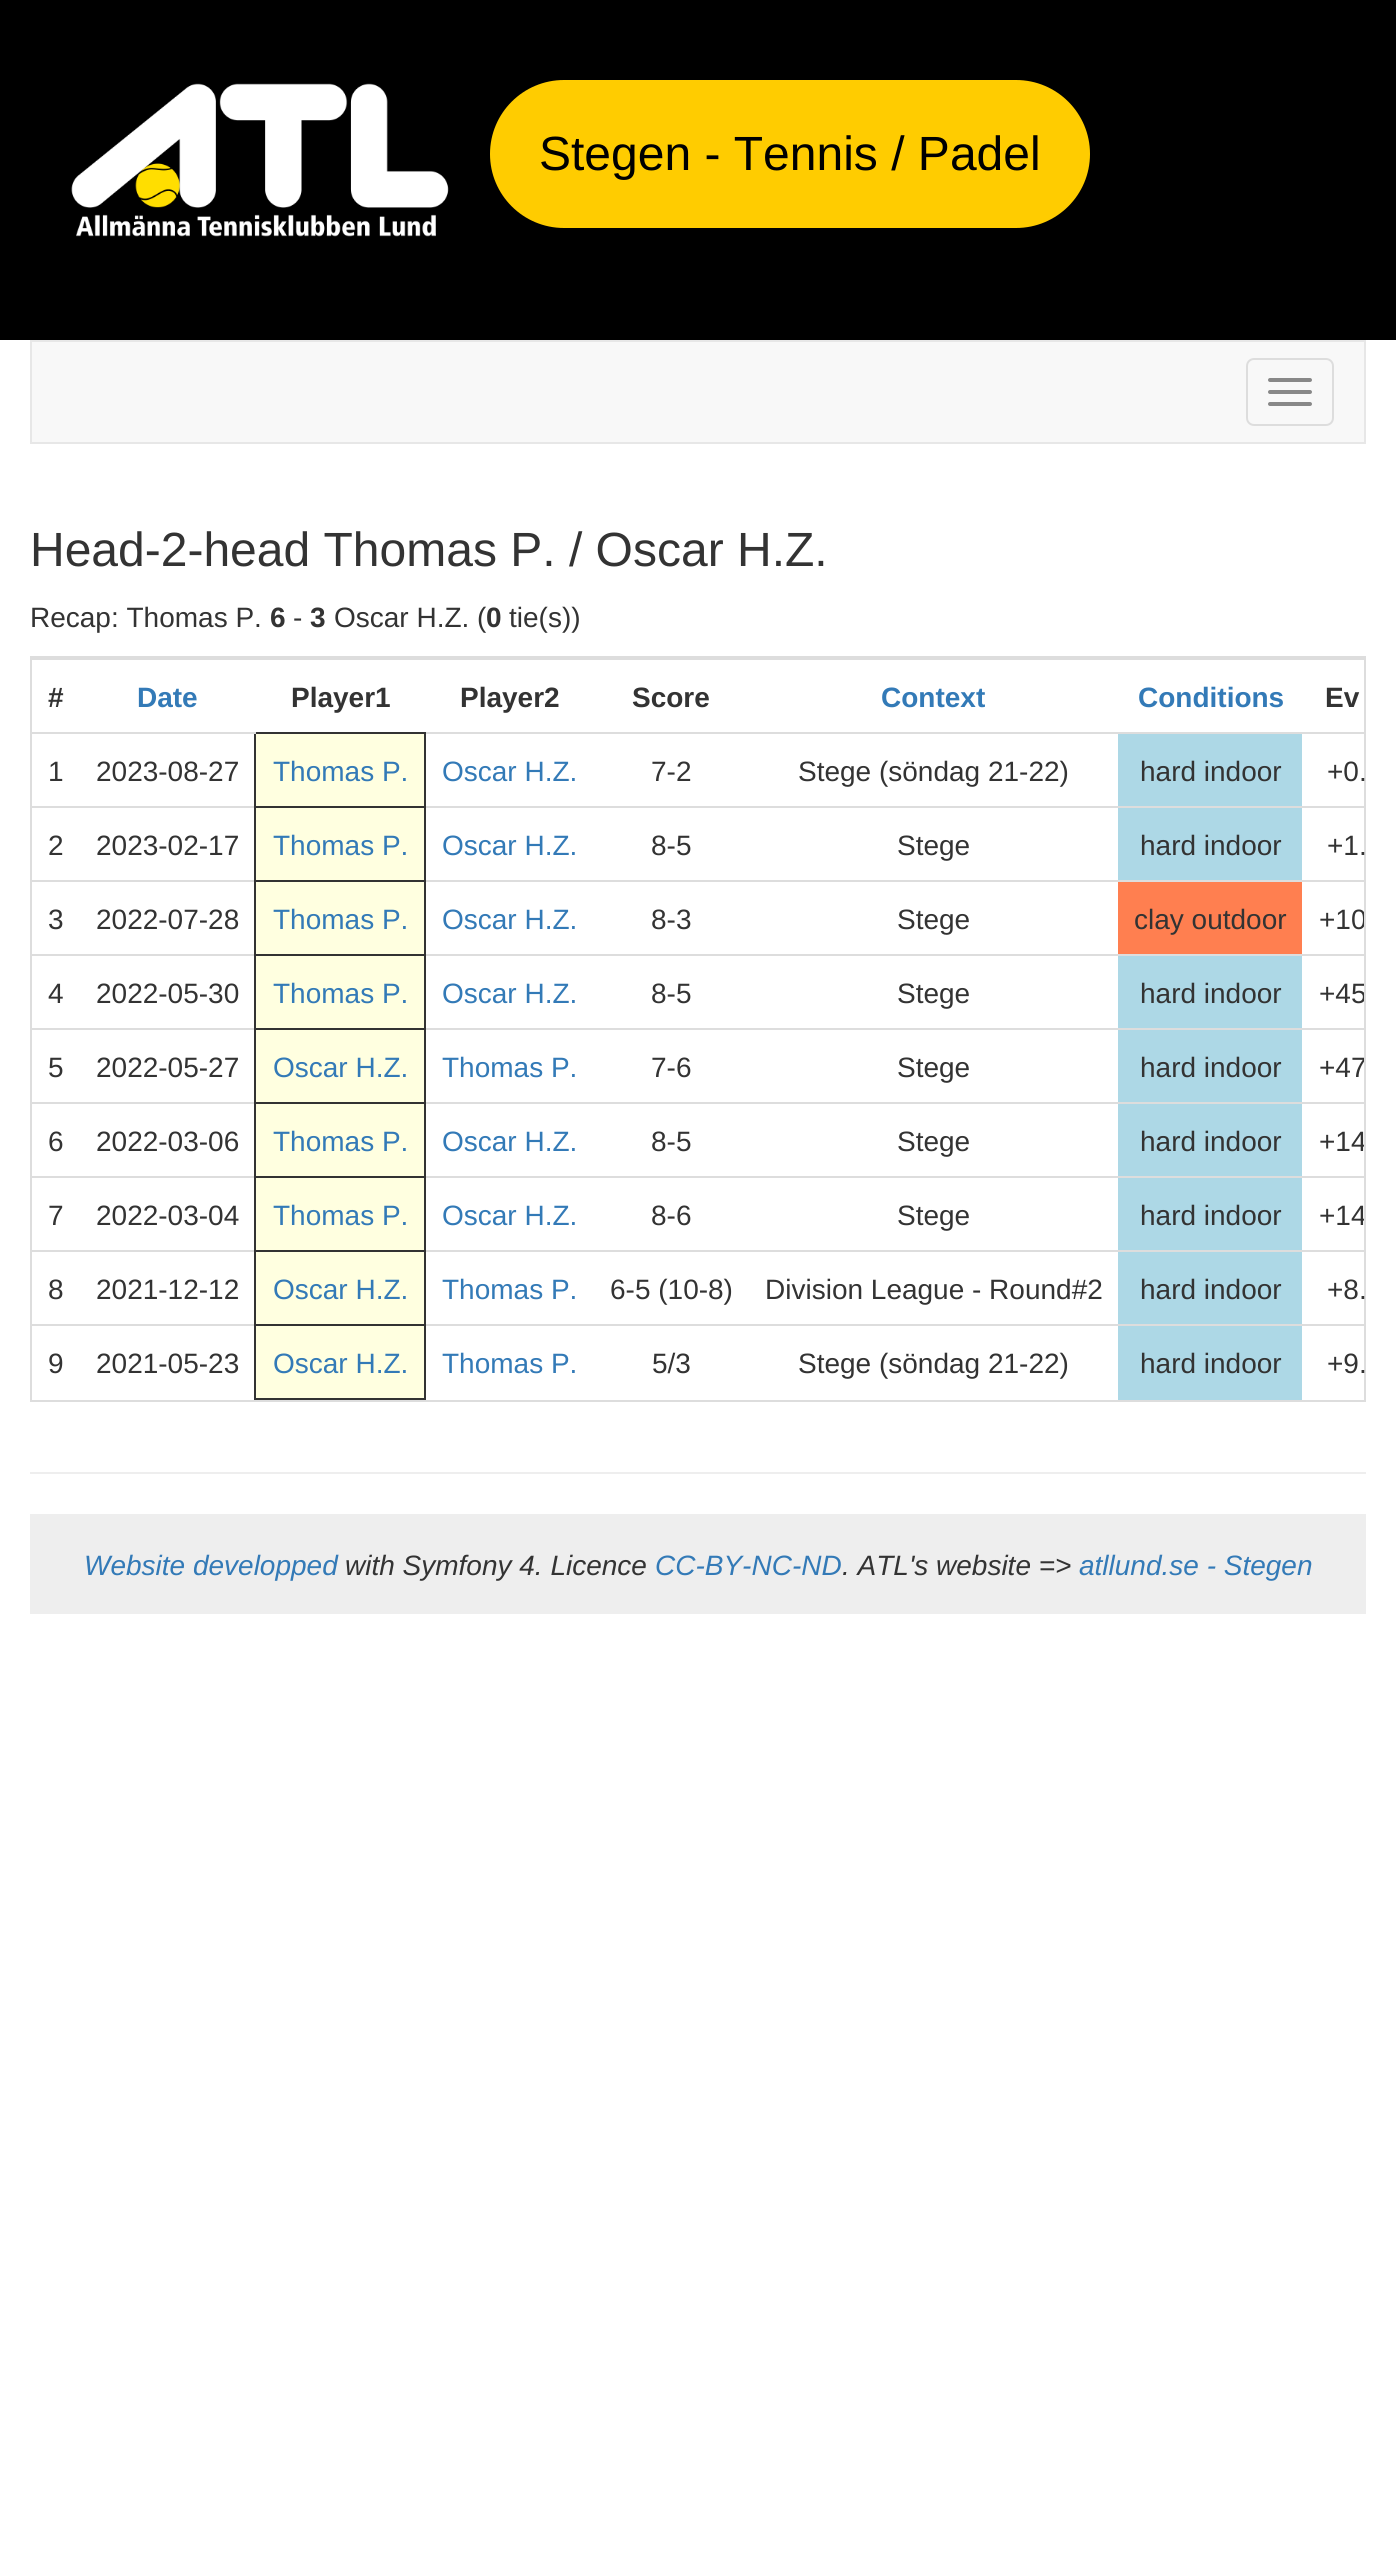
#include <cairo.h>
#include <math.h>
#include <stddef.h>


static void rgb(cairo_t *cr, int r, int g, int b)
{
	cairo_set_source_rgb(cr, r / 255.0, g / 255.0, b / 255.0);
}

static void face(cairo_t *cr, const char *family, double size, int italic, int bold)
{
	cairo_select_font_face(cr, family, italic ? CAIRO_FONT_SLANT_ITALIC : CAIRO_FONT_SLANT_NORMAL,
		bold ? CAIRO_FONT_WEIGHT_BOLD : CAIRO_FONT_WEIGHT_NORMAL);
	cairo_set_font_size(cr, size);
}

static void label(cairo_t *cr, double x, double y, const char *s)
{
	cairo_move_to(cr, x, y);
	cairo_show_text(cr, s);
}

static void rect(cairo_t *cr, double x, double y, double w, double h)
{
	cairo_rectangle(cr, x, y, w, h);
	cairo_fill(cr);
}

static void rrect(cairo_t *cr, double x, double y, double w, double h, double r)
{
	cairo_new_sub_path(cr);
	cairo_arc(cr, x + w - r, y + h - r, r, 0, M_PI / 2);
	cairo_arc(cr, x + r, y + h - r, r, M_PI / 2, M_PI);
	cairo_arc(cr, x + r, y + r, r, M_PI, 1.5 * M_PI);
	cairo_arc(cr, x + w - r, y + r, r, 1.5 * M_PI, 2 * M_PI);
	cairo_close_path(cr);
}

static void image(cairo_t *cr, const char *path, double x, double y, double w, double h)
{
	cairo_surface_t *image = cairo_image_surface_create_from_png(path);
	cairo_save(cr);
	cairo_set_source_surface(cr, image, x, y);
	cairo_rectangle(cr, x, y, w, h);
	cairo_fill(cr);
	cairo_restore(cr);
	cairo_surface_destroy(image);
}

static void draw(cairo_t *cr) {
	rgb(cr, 255, 255, 255);
	cairo_paint(cr);
	rgb(cr, 0, 0, 0);
	rect(cr, 0, 0, 1396, 340);
	image(cr, "image0.png", 71, 83, 378, 154);
	rgb(cr, 255, 204, 0);
	rrect(cr, 490, 80, 600, 148, 74);
	cairo_fill(cr);
	face(cr, "Liberation Sans", 48, 0, 0);
	rgb(cr, 0, 0, 0);
	label(cr, 539, 170, "Stegen - Tennis / Padel");
	rgb(cr, 248, 248, 248);
	cairo_rectangle(cr, 31, 341, 1334, 102);
	cairo_fill_preserve(cr);
	rgb(cr, 231, 231, 231);
	cairo_stroke(cr);
	rrect(cr, 1247, 359, 86, 66, 7);
	rgb(cr, 221, 221, 221);
	cairo_stroke(cr);
	rgb(cr, 136, 136, 136);
	rrect(cr, 1268, 378, 44, 4, 2);
	cairo_fill(cr);
	rrect(cr, 1268, 390, 44, 4, 2);
	cairo_fill(cr);
	rrect(cr, 1268, 402, 44, 4, 2);
	cairo_fill(cr);
	rgb(cr, 51, 51, 51);
	label(cr, 30, 566, "Head-2-head Thomas P. / Oscar H.Z.");
	face(cr, "Liberation Sans", 28, 0, 0);
	label(cr, 30, 627, "Recap: Thomas P.");
	face(cr, "Liberation Sans", 28, 0, 1);
	label(cr, 270, 627, "6");
	face(cr, "Liberation Sans", 28, 0, 0);
	label(cr, 293, 627, "-");
	face(cr, "Liberation Sans", 28, 0, 1);
	label(cr, 310, 627, "3");
	face(cr, "Liberation Sans", 28, 0, 0);
	label(cr, 334, 627, "Oscar H.Z. (");
	face(cr, "Liberation Sans", 28, 0, 1);
	label(cr, 486, 627, "0");
	face(cr, "Liberation Sans", 28, 0, 0);
	label(cr, 509, 627, "tie(s))");
	cairo_rectangle(cr, 31, 657, 1334, 744);
	rgb(cr, 221, 221, 221);
	cairo_stroke(cr);
	face(cr, "Liberation Sans", 28, 0, 1);
	rgb(cr, 51, 51, 51);
	label(cr, 48, 707, "#");
	rgb(cr, 51, 122, 183);
	label(cr, 137, 707, "Date");
	rgb(cr, 51, 51, 51);
	label(cr, 291, 707, "Player1");
	label(cr, 460, 707, "Player2");
	label(cr, 632, 707, "Score");
	rgb(cr, 51, 122, 183);
	label(cr, 881, 707, "Context");
	label(cr, 1138, 707, "Conditions");
	rgb(cr, 221, 221, 221);
	rect(cr, 32, 658, 1332, 2);
	rgb(cr, 51, 51, 51);
	label(cr, 1325, 707, "Ev");
	face(cr, "Liberation Sans", 28, 0, 0);
	label(cr, 48, 781, "1");
	rgb(cr, 221, 221, 221);
	rect(cr, 424, 732, 940, 2);
	rgb(cr, 51, 51, 51);
	rect(cr, 254, 732, 172, 2);
	rgb(cr, 221, 221, 221);
	rect(cr, 424, 806, 940, 2);
	rect(cr, 424, 880, 940, 2);
	rect(cr, 424, 954, 940, 2);
	rect(cr, 424, 1028, 940, 2);
	rect(cr, 424, 1102, 940, 2);
	rect(cr, 424, 1176, 940, 2);
	rect(cr, 424, 1250, 940, 2);
	rect(cr, 424, 1324, 940, 2);
	rgb(cr, 51, 51, 51);
	rect(cr, 424, 1324, 2, 76);
	rect(cr, 424, 1250, 2, 76);
	rect(cr, 424, 1176, 2, 76);
	rect(cr, 424, 1102, 2, 76);
	rect(cr, 424, 1028, 2, 76);
	rect(cr, 424, 954, 2, 76);
	rect(cr, 424, 880, 2, 76);
	rect(cr, 424, 806, 2, 76);
	rect(cr, 424, 732, 2, 76);
	rect(cr, 254, 1398, 172, 2);
	rect(cr, 254, 1324, 2, 76);
	rgb(cr, 221, 221, 221);
	rect(cr, 32, 1324, 224, 2);
	rgb(cr, 51, 51, 51);
	rect(cr, 254, 1324, 172, 2);
	rect(cr, 254, 1250, 2, 76);
	rgb(cr, 221, 221, 221);
	rect(cr, 32, 1250, 224, 2);
	rgb(cr, 51, 51, 51);
	rect(cr, 254, 1250, 172, 2);
	rect(cr, 254, 1176, 2, 76);
	rgb(cr, 221, 221, 221);
	rect(cr, 32, 1176, 224, 2);
	rgb(cr, 51, 51, 51);
	rect(cr, 254, 1176, 172, 2);
	rect(cr, 254, 1102, 2, 76);
	rgb(cr, 221, 221, 221);
	rect(cr, 32, 1102, 224, 2);
	rgb(cr, 51, 51, 51);
	rect(cr, 254, 1102, 172, 2);
	rect(cr, 254, 1028, 2, 76);
	rgb(cr, 221, 221, 221);
	rect(cr, 32, 1028, 224, 2);
	rgb(cr, 51, 51, 51);
	rect(cr, 254, 1028, 172, 2);
	rect(cr, 254, 954, 2, 76);
	rgb(cr, 221, 221, 221);
	rect(cr, 32, 954, 224, 2);
	rgb(cr, 51, 51, 51);
	rect(cr, 254, 954, 172, 2);
	rect(cr, 254, 880, 2, 76);
	rgb(cr, 221, 221, 221);
	rect(cr, 32, 880, 224, 2);
	rgb(cr, 51, 51, 51);
	rect(cr, 254, 880, 172, 2);
	rect(cr, 254, 806, 2, 76);
	rgb(cr, 221, 221, 221);
	rect(cr, 32, 806, 224, 2);
	rgb(cr, 51, 51, 51);
	rect(cr, 254, 806, 172, 2);
	rect(cr, 254, 732, 2, 76);
	rgb(cr, 221, 221, 221);
	rect(cr, 32, 732, 224, 2);
	rgb(cr, 51, 51, 51);
	label(cr, 96, 781, "2023-08-27");
	rgb(cr, 255, 255, 224);
	rect(cr, 256, 734, 168, 72);
	rgb(cr, 51, 122, 183);
	label(cr, 273, 781, "Thomas P.");
	label(cr, 442, 781, "Oscar H.Z.");
	rgb(cr, 51, 51, 51);
	label(cr, 651, 781, "7-2");
	label(cr, 798, 781, "Stege (söndag 21-22)");
	rgb(cr, 173, 216, 230);
	rect(cr, 1118, 734, 184, 72);
	rgb(cr, 51, 51, 51);
	label(cr, 1140, 781, "hard indoor");
	label(cr, 1327, 781, "+0.");
	label(cr, 48, 855, "2");
	label(cr, 96, 855, "2023-02-17");
	rgb(cr, 255, 255, 224);
	rect(cr, 256, 808, 168, 72);
	rgb(cr, 51, 122, 183);
	label(cr, 273, 855, "Thomas P.");
	label(cr, 442, 855, "Oscar H.Z.");
	rgb(cr, 51, 51, 51);
	label(cr, 651, 855, "8-5");
	label(cr, 897, 855, "Stege");
	rgb(cr, 173, 216, 230);
	rect(cr, 1118, 808, 184, 72);
	rgb(cr, 51, 51, 51);
	label(cr, 1140, 855, "hard indoor");
	label(cr, 1327, 855, "+1.");
	label(cr, 48, 929, "3");
	label(cr, 96, 929, "2022-07-28");
	rgb(cr, 255, 255, 224);
	rect(cr, 256, 882, 168, 72);
	rgb(cr, 51, 122, 183);
	label(cr, 273, 929, "Thomas P.");
	label(cr, 442, 929, "Oscar H.Z.");
	rgb(cr, 51, 51, 51);
	label(cr, 651, 929, "8-3");
	label(cr, 897, 929, "Stege");
	rgb(cr, 255, 127, 80);
	rect(cr, 1118, 882, 184, 72);
	rgb(cr, 51, 51, 51);
	label(cr, 1134, 929, "clay outdoor");
	cairo_save(cr);
	cairo_rectangle(cr, 32, 658, 1332, 742);
	cairo_clip(cr);
	label(cr, 1319, 929, "+10");
	cairo_restore(cr);
	label(cr, 48, 1003, "4");
	label(cr, 96, 1003, "2022-05-30");
	rgb(cr, 255, 255, 224);
	rect(cr, 256, 956, 168, 72);
	rgb(cr, 51, 122, 183);
	label(cr, 273, 1003, "Thomas P.");
	label(cr, 442, 1003, "Oscar H.Z.");
	rgb(cr, 51, 51, 51);
	label(cr, 651, 1003, "8-5");
	label(cr, 897, 1003, "Stege");
	rgb(cr, 173, 216, 230);
	rect(cr, 1118, 956, 184, 72);
	rgb(cr, 51, 51, 51);
	label(cr, 1140, 1003, "hard indoor");
	cairo_save(cr);
	cairo_rectangle(cr, 32, 658, 1332, 742);
	cairo_clip(cr);
	label(cr, 1319, 1003, "+45");
	cairo_restore(cr);
	label(cr, 48, 1077, "5");
	label(cr, 96, 1077, "2022-05-27");
	rgb(cr, 255, 255, 224);
	rect(cr, 256, 1030, 168, 72);
	rgb(cr, 51, 122, 183);
	label(cr, 273, 1077, "Oscar H.Z.");
	label(cr, 442, 1077, "Thomas P.");
	rgb(cr, 51, 51, 51);
	label(cr, 651, 1077, "7-6");
	label(cr, 897, 1077, "Stege");
	rgb(cr, 173, 216, 230);
	rect(cr, 1118, 1030, 184, 72);
	rgb(cr, 51, 51, 51);
	label(cr, 1140, 1077, "hard indoor");
	cairo_save(cr);
	cairo_rectangle(cr, 32, 658, 1332, 742);
	cairo_clip(cr);
	label(cr, 1319, 1077, "+47");
	cairo_restore(cr);
	label(cr, 48, 1151, "6");
	label(cr, 96, 1151, "2022-03-06");
	rgb(cr, 255, 255, 224);
	rect(cr, 256, 1104, 168, 72);
	rgb(cr, 51, 122, 183);
	label(cr, 273, 1151, "Thomas P.");
	label(cr, 442, 1151, "Oscar H.Z.");
	rgb(cr, 51, 51, 51);
	label(cr, 651, 1151, "8-5");
	label(cr, 897, 1151, "Stege");
	rgb(cr, 173, 216, 230);
	rect(cr, 1118, 1104, 184, 72);
	rgb(cr, 51, 51, 51);
	label(cr, 1140, 1151, "hard indoor");
	cairo_save(cr);
	cairo_rectangle(cr, 32, 658, 1332, 742);
	cairo_clip(cr);
	label(cr, 1319, 1151, "+14");
	cairo_restore(cr);
	label(cr, 48, 1225, "7");
	label(cr, 96, 1225, "2022-03-04");
	rgb(cr, 255, 255, 224);
	rect(cr, 256, 1178, 168, 72);
	rgb(cr, 51, 122, 183);
	label(cr, 273, 1225, "Thomas P.");
	label(cr, 442, 1225, "Oscar H.Z.");
	rgb(cr, 51, 51, 51);
	label(cr, 651, 1225, "8-6");
	label(cr, 897, 1225, "Stege");
	rgb(cr, 173, 216, 230);
	rect(cr, 1118, 1178, 184, 72);
	rgb(cr, 51, 51, 51);
	label(cr, 1140, 1225, "hard indoor");
	cairo_save(cr);
	cairo_rectangle(cr, 32, 658, 1332, 742);
	cairo_clip(cr);
	label(cr, 1319, 1225, "+14");
	cairo_restore(cr);
	label(cr, 48, 1299, "8");
	label(cr, 96, 1299, "2021-12-12");
	rgb(cr, 255, 255, 224);
	rect(cr, 256, 1252, 168, 72);
	rgb(cr, 51, 122, 183);
	label(cr, 273, 1299, "Oscar H.Z.");
	label(cr, 442, 1299, "Thomas P.");
	rgb(cr, 51, 51, 51);
	label(cr, 610, 1299, "6-5 (10-8)");
	label(cr, 765, 1299, "Division League - Round#2");
	rgb(cr, 173, 216, 230);
	rect(cr, 1118, 1252, 184, 72);
	rgb(cr, 51, 51, 51);
	label(cr, 1140, 1299, "hard indoor");
	label(cr, 1327, 1299, "+8.");
	label(cr, 48, 1373, "9");
	label(cr, 96, 1373, "2021-05-23");
	rgb(cr, 255, 255, 224);
	rect(cr, 256, 1326, 168, 72);
	rgb(cr, 51, 122, 183);
	label(cr, 273, 1373, "Oscar H.Z.");
	label(cr, 442, 1373, "Thomas P.");
	rgb(cr, 51, 51, 51);
	label(cr, 652, 1373, "5/3");
	label(cr, 798, 1373, "Stege (söndag 21-22)");
	rgb(cr, 173, 216, 230);
	rect(cr, 1118, 1326, 184, 74);
	rgb(cr, 51, 51, 51);
	label(cr, 1140, 1373, "hard indoor");
	label(cr, 1327, 1373, "+9.");
	rgb(cr, 238, 238, 238);
	rect(cr, 30, 1472, 1336, 2);
	rect(cr, 30, 1514, 1336, 100);
	face(cr, "Liberation Sans", 28, 1, 0);
	rgb(cr, 51, 122, 183);
	label(cr, 84, 1575, "Website developped");
	rgb(cr, 51, 51, 51);
	label(cr, 345, 1575, "with Symfony 4. Licence");
	rgb(cr, 51, 122, 183);
	label(cr, 655, 1575, "CC-BY-NC-ND");
	rgb(cr, 51, 51, 51);
	label(cr, 842, 1575, ". ATL's website =>");
	rgb(cr, 51, 122, 183);
	label(cr, 1079, 1575, "atllund.se - Stegen");
}

int main(void) {
	cairo_surface_t *surface = cairo_image_surface_create(CAIRO_FORMAT_RGB24, 1396, 2572);
	cairo_t *cr = cairo_create(surface);
	cairo_font_options_t *options = cairo_font_options_create();
	cairo_font_options_set_hint_metrics(options, CAIRO_HINT_METRICS_OFF);
	cairo_font_options_set_hint_style(options, CAIRO_HINT_STYLE_NONE);
	cairo_set_font_options(cr, options);
	cairo_set_miter_limit(cr, 4);
	draw(cr);
	cairo_surface_write_to_png(surface, "render.png");
	cairo_font_options_destroy(options);
	cairo_destroy(cr);
	cairo_surface_destroy(surface);
	return 0;
}
